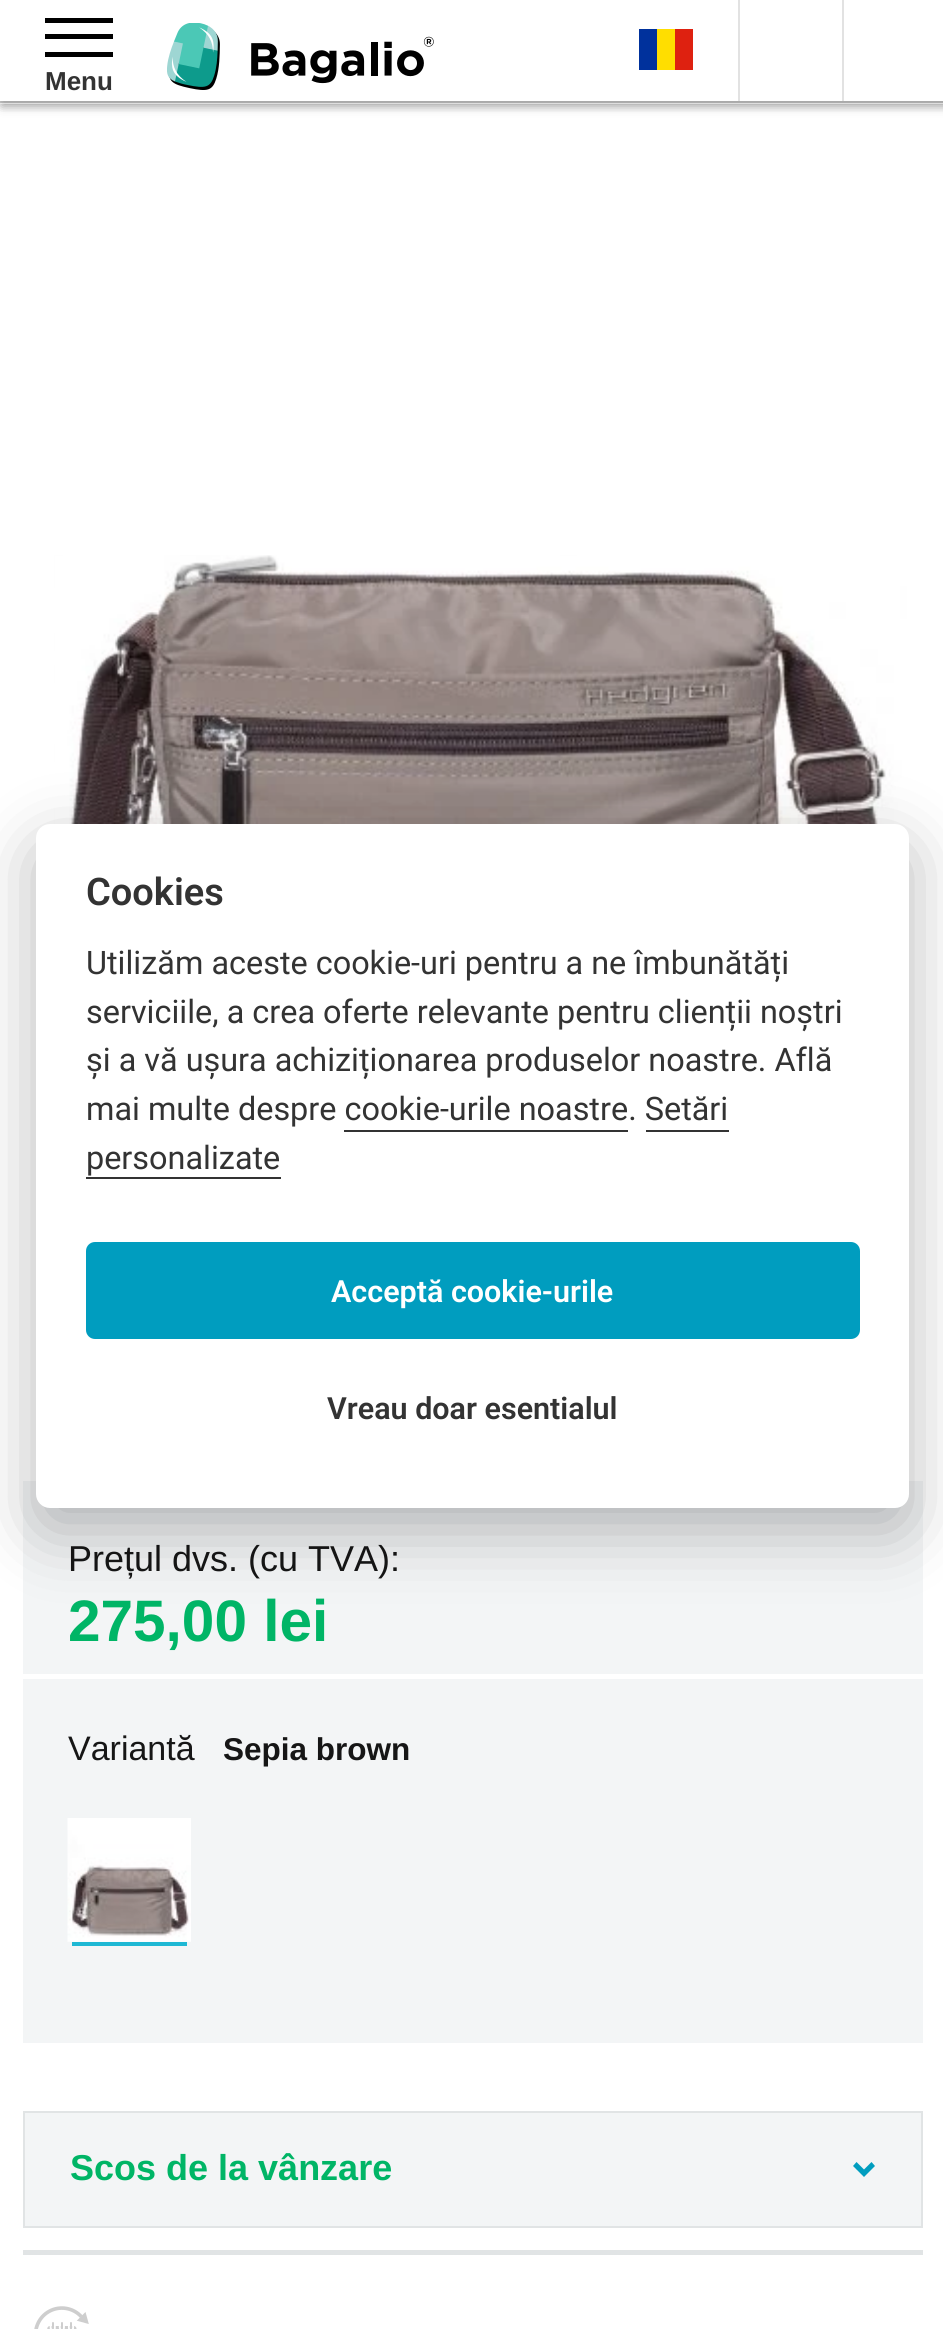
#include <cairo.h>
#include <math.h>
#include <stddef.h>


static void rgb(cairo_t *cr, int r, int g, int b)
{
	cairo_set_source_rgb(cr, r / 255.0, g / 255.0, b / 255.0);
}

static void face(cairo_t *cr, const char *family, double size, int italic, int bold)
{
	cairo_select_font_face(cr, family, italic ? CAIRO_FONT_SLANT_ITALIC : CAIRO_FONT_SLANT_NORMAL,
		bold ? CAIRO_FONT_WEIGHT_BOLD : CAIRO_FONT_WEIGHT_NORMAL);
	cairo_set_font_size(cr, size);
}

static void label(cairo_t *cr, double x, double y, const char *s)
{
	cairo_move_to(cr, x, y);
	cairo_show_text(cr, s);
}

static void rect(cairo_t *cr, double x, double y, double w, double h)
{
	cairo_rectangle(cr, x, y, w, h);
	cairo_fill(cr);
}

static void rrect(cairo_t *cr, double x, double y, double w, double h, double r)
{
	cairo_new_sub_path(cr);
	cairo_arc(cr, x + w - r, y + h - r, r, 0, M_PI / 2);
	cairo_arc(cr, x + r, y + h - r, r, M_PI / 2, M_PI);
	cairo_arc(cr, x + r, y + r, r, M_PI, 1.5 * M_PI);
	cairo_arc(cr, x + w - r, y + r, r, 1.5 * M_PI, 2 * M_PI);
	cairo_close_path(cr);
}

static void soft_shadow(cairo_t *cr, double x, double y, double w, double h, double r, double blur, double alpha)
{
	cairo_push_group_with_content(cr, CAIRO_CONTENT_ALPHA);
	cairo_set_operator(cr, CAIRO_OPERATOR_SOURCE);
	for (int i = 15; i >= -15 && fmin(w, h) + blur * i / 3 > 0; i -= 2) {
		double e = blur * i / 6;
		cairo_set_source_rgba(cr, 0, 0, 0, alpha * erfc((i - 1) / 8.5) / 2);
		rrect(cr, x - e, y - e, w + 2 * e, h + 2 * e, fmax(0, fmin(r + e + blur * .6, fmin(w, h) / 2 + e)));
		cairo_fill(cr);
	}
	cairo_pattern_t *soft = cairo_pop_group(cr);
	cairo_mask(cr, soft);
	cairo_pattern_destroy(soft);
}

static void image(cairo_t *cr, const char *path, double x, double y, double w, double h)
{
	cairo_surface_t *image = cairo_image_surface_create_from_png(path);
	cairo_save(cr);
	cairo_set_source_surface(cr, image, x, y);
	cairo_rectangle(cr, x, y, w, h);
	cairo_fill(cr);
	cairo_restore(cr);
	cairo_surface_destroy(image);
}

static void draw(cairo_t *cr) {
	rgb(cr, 255, 255, 255);
	cairo_paint(cr);
	rgb(cr, 0, 0, 0);
	soft_shadow(cr, 2, 2, 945, 104, 0, 5.5, 0.25);
	rgb(cr, 255, 255, 255);
	rect(cr, 0, 0, 943, 104);
	rgb(cr, 204, 204, 204);
	rect(cr, 0, 101, 943, 2);
	cairo_save(cr);
	cairo_rectangle(cr, 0, 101, 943, 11);
	cairo_clip(cr);
	rgb(cr, 0, 0, 0);
	soft_shadow(cr, 2, 2, 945, 102, 0, 5.5, 0.25);
	cairo_restore(cr);
	image(cr, "image0.png", 167, 23, 267, 67);
	rgb(cr, 0, 49, 156);
	rect(cr, 639, 29, 18, 41);
	rgb(cr, 255, 222, 0);
	rect(cr, 657, 29, 18, 41);
	rgb(cr, 222, 33, 16);
	rect(cr, 675, 29, 18, 41);
	rgb(cr, 226, 226, 226);
	rect(cr, 842, 0, 2, 101);
	rect(cr, 738, 0, 2, 101);
	rgb(cr, 0, 0, 0);
	rect(cr, 45, 18, 68, 5);
	rect(cr, 45, 52, 68, 5);
	rect(cr, 45, 34, 68, 5);
	face(cr, "Liberation Sans", 26, 0, 1);
	rgb(cr, 51, 51, 51);
	label(cr, 45, 90, "Menu");
	image(cr, "image1.png", 54, 555, 853, 276);
	rgb(cr, 243, 245, 246);
	rect(cr, 23, 1481, 900, 193);
	face(cr, "Liberation Sans", 36, 0, 0);
	rgb(cr, 22, 22, 22);
	label(cr, 68, 1571, "Prețul dvs. (cu TVA):");
	face(cr, "Liberation Sans", 58.5, 0, 1);
	rgb(cr, 0, 181, 102);
	label(cr, 68, 1641, "275,00 lei");
	rgb(cr, 243, 245, 246);
	rect(cr, 23, 1679, 900, 364);
	face(cr, "Liberation Sans", 34, 0, 0);
	rgb(cr, 22, 22, 22);
	label(cr, 68, 1760, "Variantă");
	face(cr, "Liberation Sans", 31.5, 0, 1);
	label(cr, 223, 1760, "Sepia brown");
	rgb(cr, 30, 184, 212);
	rect(cr, 72, 1942, 115, 4);
	image(cr, "image2.png", 67, 1818, 124, 124);
	rgb(cr, 225, 228, 229);
	rect(cr, 23, 2250, 900, 5);
	rgb(cr, 243, 245, 246);
	cairo_rectangle(cr, 24, 2112, 898, 115);
	cairo_fill_preserve(cr);
	rgb(cr, 225, 228, 229);
	cairo_stroke(cr);
	face(cr, "Liberation Sans", 36, 0, 1);
	rgb(cr, 0, 181, 102);
	label(cr, 70, 2180, "Scos de la vânzare");
	rgb(cr, 0, 157, 191);
	cairo_new_path(cr);
	cairo_move_to(cr, 871.5, 2162);
	cairo_line_to(cr, 864, 2169.5);
	cairo_line_to(cr, 856.5, 2162);
	cairo_line_to(cr, 853, 2166);
	cairo_line_to(cr, 864, 2177);
	cairo_line_to(cr, 875, 2166);
	cairo_close_path(cr);
	cairo_fill(cr);
	image(cr, "image3.png", 34, 2306, 55, 23);
	rgb(cr, 2, 2, 3);
	soft_shadow(cr, 36, 846, 873, 684, 14, 34, 0.28);
	rgb(cr, 255, 255, 255);
	rrect(cr, 36, 824, 873, 684, 14);
	cairo_fill(cr);
	face(cr, "Roboto SemiBold", 38, 0, 0);
	rgb(cr, 51, 51, 51);
	label(cr, 86, 905, "Cookies");
	face(cr, "Roboto", 32.4, 0, 0);
	label(cr, 86, 974, "Utilizăm aceste cookie-uri pentru a ne îmbunătăți");
	label(cr, 86, 1023, "serviciile, a crea oferte relevante pentru clienții noștri");
	label(cr, 86, 1071, "și a vă ușura achiziționarea produselor noastre. Află");
	label(cr, 86, 1120, "mai multe despre cookie-urile noastre. Setări");
	rect(cr, 344, 1130, 284, 2);
	label(cr, 86, 1169, "personalizate");
	rect(cr, 646, 1130, 83, 2);
	rect(cr, 86, 1177, 195, 2);
	rgb(cr, 0, 157, 191);
	rrect(cr, 86, 1242, 774, 97, 9);
	cairo_fill(cr);
	face(cr, "Roboto SemiBold", 30.5, 0, 0);
	rgb(cr, 255, 255, 255);
	label(cr, 331, 1302, "Acceptă cookie-urile");
	rgb(cr, 51, 51, 51);
	label(cr, 327, 1419, "Vreau doar esentialul");
}

int main(void) {
	cairo_surface_t *surface = cairo_image_surface_create(CAIRO_FORMAT_RGB24, 943, 2329);
	cairo_t *cr = cairo_create(surface);
	cairo_font_options_t *options = cairo_font_options_create();
	cairo_font_options_set_hint_metrics(options, CAIRO_HINT_METRICS_OFF);
	cairo_font_options_set_hint_style(options, CAIRO_HINT_STYLE_NONE);
	cairo_set_font_options(cr, options);
	cairo_set_miter_limit(cr, 4);
	draw(cr);
	cairo_surface_write_to_png(surface, "render.png");
	cairo_font_options_destroy(options);
	cairo_destroy(cr);
	cairo_surface_destroy(surface);
	return 0;
}
